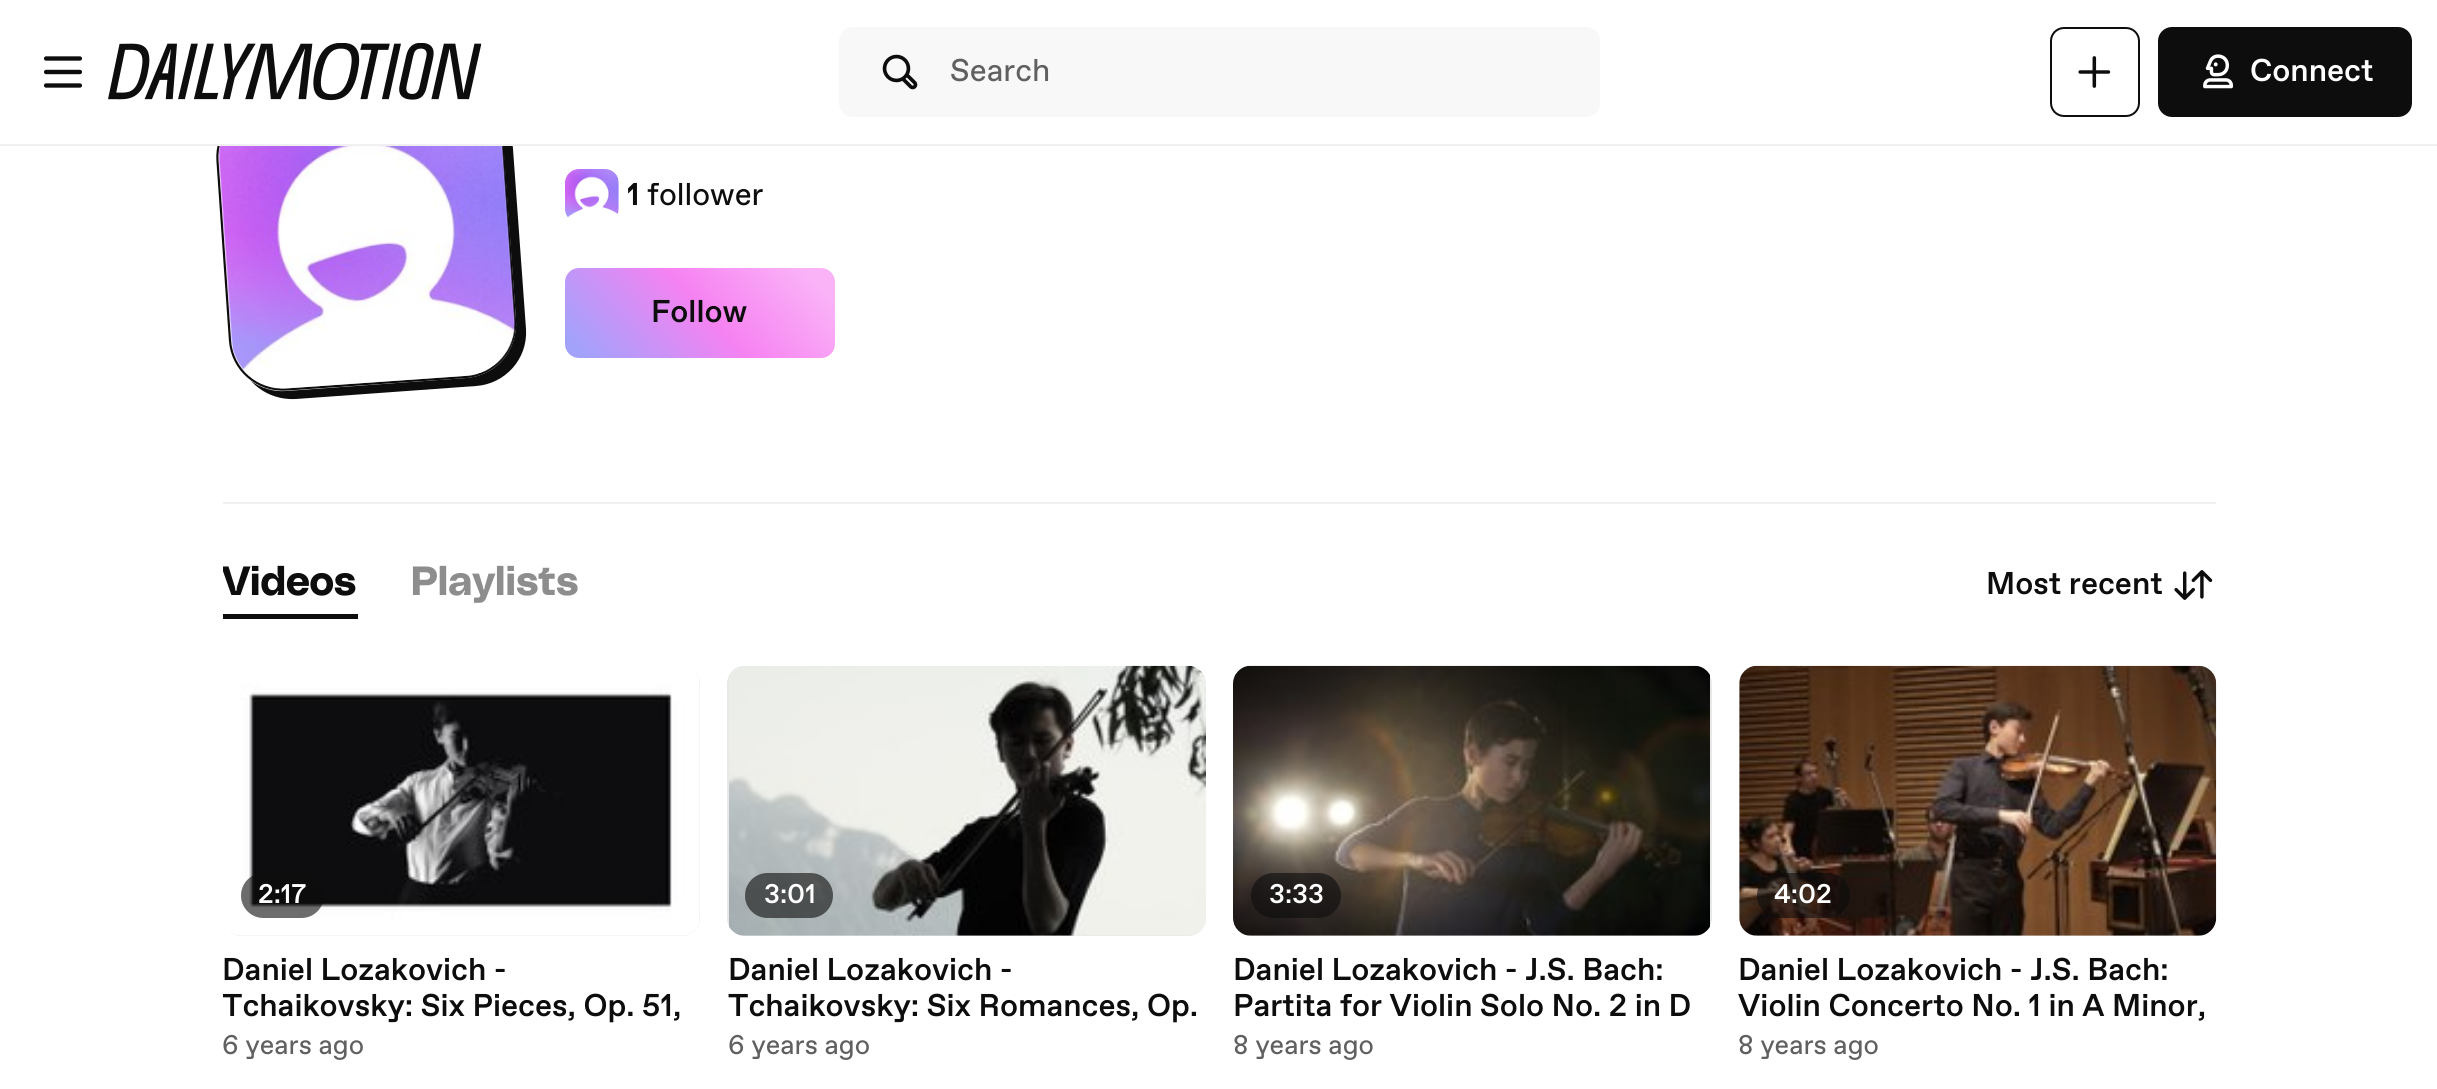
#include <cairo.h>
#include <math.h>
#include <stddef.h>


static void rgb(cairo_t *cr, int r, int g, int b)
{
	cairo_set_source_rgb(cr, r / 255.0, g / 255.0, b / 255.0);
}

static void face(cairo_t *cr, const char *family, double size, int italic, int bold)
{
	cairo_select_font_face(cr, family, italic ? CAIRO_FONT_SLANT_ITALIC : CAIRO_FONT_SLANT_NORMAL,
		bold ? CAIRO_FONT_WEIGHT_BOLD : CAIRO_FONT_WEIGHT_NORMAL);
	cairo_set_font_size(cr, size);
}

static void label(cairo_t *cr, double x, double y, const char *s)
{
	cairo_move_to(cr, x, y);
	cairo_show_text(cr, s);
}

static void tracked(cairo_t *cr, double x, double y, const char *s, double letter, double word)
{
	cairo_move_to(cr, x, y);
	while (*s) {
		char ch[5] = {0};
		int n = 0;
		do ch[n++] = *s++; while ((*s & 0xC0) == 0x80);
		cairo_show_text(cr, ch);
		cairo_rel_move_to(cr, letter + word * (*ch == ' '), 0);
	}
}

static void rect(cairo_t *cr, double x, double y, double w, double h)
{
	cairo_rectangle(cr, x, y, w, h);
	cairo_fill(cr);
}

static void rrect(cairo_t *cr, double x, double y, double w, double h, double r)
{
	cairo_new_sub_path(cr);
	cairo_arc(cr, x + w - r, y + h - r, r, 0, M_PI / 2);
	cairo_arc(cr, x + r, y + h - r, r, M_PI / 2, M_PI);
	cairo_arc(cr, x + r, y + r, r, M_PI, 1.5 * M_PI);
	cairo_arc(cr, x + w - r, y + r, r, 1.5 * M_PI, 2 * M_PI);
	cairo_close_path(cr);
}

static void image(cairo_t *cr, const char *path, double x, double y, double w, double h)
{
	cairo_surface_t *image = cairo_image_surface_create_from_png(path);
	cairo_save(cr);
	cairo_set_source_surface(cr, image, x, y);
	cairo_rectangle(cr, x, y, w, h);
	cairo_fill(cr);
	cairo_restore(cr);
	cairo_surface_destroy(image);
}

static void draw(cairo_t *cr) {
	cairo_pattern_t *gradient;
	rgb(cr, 255, 255, 255);
	cairo_paint(cr);
	rgb(cr, 13, 13, 13);
	cairo_new_path(cr);
	cairo_move_to(cr, 251, 381);
	cairo_curve_to(cr, 262, 393, 278, 400, 296, 399);
	cairo_line_to(cr, 476, 386);
	cairo_curve_to(cr, 505, 384, 528, 359, 526, 329);
	cairo_line_to(cr, 513, 149);
	cairo_curve_to(cr, 512, 133, 503, 118, 490, 109);
	cairo_curve_to(cr, 498, 117, 503, 129, 503, 141);
	cairo_line_to(cr, 516, 320);
	cairo_curve_to(cr, 518, 350, 496, 376, 466, 378);
	cairo_line_to(cr, 286, 391);
	cairo_curve_to(cr, 273, 392, 261, 388, 251, 381);
	cairo_close_path(cr);
	cairo_fill(cr);
	cairo_new_path(cr);
	cairo_move_to(cr, 266.5, 104.5);
	cairo_line_to(cr, 446, 92);
	cairo_curve_to(cr, 475, 90, 500.5, 112, 502.5, 141);
	cairo_line_to(cr, 515, 320.5);
	cairo_curve_to(cr, 517, 349.5, 495, 375, 466, 377);
	cairo_line_to(cr, 286.5, 389.5);
	cairo_curve_to(cr, 257, 391.5, 232, 369.5, 230, 340.5);
	cairo_line_to(cr, 217.5, 161);
	cairo_curve_to(cr, 215.5, 132, 237, 106.5, 266.5, 104.5);
	cairo_close_path(cr);
	cairo_set_line_width(cr, 2.2);
	cairo_stroke(cr);
	rgb(cr, 255, 255, 255);
	rect(cr, 218, 90, 295, 54);
	rgb(cr, 240, 240, 240);
	rect(cr, 0, 144, 2437, 2);
	image(cr, "image0.png", 43, 56, 40, 32);
	image(cr, "image1.png", 108, 43, 374, 58);
	rgb(cr, 248, 248, 248);
	rrect(cr, 839, 27, 761, 90, 14);
	cairo_fill(cr);
	image(cr, "image2.png", 882, 54, 36, 36);
	face(cr, "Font", 31.5, 0, 0);
	rgb(cr, 96, 96, 96);
	label(cr, 950, 81, "Search");
	rrect(cr, 2051, 28, 88, 88, 13);
	rgb(cr, 13, 13, 13);
	cairo_set_line_width(cr, 2);
	cairo_stroke(cr);
	image(cr, "image3.png", 2078, 56, 33, 32);
	rrect(cr, 2159, 28, 252, 88, 13);
	cairo_fill_preserve(cr);
	cairo_stroke(cr);
	image(cr, "image4.png", 2203, 54, 30, 35);
	face(cr, "Font Medium", 31.5, 0, 0);
	rgb(cr, 255, 255, 255);
	label(cr, 2250, 81, "Connect");
	rgb(cr, 240, 240, 240);
	rect(cr, 223, 502, 1993, 2);
	image(cr, "image5.png", 218, 146, 298, 243);
	image(cr, "image6.png", 565, 169, 54, 49);
	rrect(cr, 564, 168, 56, 56, 15);
	rgb(cr, 255, 255, 255);
	cairo_stroke(cr);
	face(cr, "Font", 31.5, 0, 1);
	rgb(cr, 13, 13, 13);
	label(cr, 627, 205, "1");
	face(cr, "Font", 31.5, 0, 0);
	label(cr, 647, 205, "follower");
	gradient = cairo_pattern_create_linear(797, 225, 603, 400);
	cairo_pattern_add_color_stop_rgba(gradient, 0.09, 0.98, 0.702, 0.969, 1);
	cairo_pattern_add_color_stop_rgba(gradient, 0.48, 0.965, 0.51, 0.949, 1);
	cairo_pattern_add_color_stop_rgba(gradient, 0.94, 0.635, 0.635, 0.984, 1);
	cairo_set_source(cr, gradient);
	cairo_pattern_destroy(gradient);
	rrect(cr, 565, 268, 270, 90, 14);
	cairo_fill(cr);
	face(cr, "Font Medium", 31.5, 0, 0);
	rgb(cr, 13, 13, 13);
	label(cr, 651, 322, "Follow");
	cairo_new_path(cr);
	cairo_move_to(cr, 223, 614);
	cairo_line_to(cr, 223, 619);
	cairo_line_to(cr, 358, 619);
	cairo_line_to(cr, 358, 563);
	cairo_line_to(cr, 358, 614);
	cairo_close_path(cr);
	cairo_fill(cr);
	cairo_save(cr);
	cairo_rectangle(cr, 223, 531, 355, 108);
	cairo_clip(cr);
	face(cr, "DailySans", 40.5, 0, 1);
	tracked(cr, 222, 595, "Videos", 0.25, 0);
	cairo_restore(cr);
	face(cr, "DailySans", 40.5, 0, 1);
	rgb(cr, 141, 141, 141);
	tracked(cr, 411, 595, "Playlists", 0.25, 0);
	face(cr, "Font Medium", 31.5, 0, 0);
	rgb(cr, 13, 13, 13);
	label(cr, 1986, 594, "Most recent");
	image(cr, "image7.png", 2174, 570, 39, 30);
	rgb(cr, 232, 232, 232);
	rrect(cr, 223, 666, 477, 270, 18);
	cairo_fill(cr);
	image(cr, "image8.png", 223, 666, 477, 270);
	cairo_set_source_rgba(cr, 0.051, 0.051, 0.051, 0.6);
	rrect(cr, 241, 873, 83, 45, 22.5);
	cairo_fill(cr);
	face(cr, "Font Medium", 27, 0, 0);
	rgb(cr, 255, 255, 255);
	label(cr, 258, 903, "2:17");
	face(cr, "Font Medium", 31.5, 0, 0);
	rgb(cr, 13, 13, 13);
	label(cr, 222, 980, "Daniel Lozakovich -");
	cairo_save(cr);
	cairo_rectangle(cr, 223, 954, 477, 72);
	cairo_clip(cr);
	label(cr, 222, 1016, "Tchaikovsky: Six Pieces, Op. 51,");
	cairo_restore(cr);
	face(cr, "Font", 27, 0, 0);
	rgb(cr, 96, 96, 96);
	label(cr, 222, 1054, "6 years ago");
	rgb(cr, 232, 232, 232);
	rrect(cr, 727, 666, 479, 270, 18);
	cairo_fill(cr);
	image(cr, "image9.png", 729, 665, 477, 271);
	cairo_set_source_rgba(cr, 0.051, 0.051, 0.051, 0.6);
	rrect(cr, 745, 873, 88, 45, 22.5);
	cairo_fill(cr);
	face(cr, "Font Medium", 27, 0, 0);
	rgb(cr, 255, 255, 255);
	label(cr, 764, 903, "3:01");
	face(cr, "Font Medium", 31.5, 0, 0);
	rgb(cr, 13, 13, 13);
	label(cr, 728, 980, "Daniel Lozakovich -");
	label(cr, 728, 1016, "Tchaikovsky: Six Romances, Op.");
	face(cr, "Font", 27, 0, 0);
	rgb(cr, 96, 96, 96);
	label(cr, 728, 1054, "6 years ago");
	rgb(cr, 232, 232, 232);
	rrect(cr, 1233, 666, 479, 270, 18);
	cairo_fill(cr);
	image(cr, "image10.png", 1233, 665, 477, 271);
	cairo_set_source_rgba(cr, 0.051, 0.051, 0.051, 0.6);
	rrect(cr, 1251, 873, 90, 45, 22.5);
	cairo_fill(cr);
	face(cr, "Font Medium", 27, 0, 0);
	rgb(cr, 255, 255, 255);
	label(cr, 1269, 903, "3:33");
	face(cr, "Font Medium", 31.5, 0, 0);
	rgb(cr, 13, 13, 13);
	label(cr, 1233, 980, "Daniel Lozakovich - J.S. Bach:");
	label(cr, 1233, 1016, "Partita for Violin Solo No. 2 in D");
	face(cr, "Font", 27, 0, 0);
	rgb(cr, 96, 96, 96);
	label(cr, 1233, 1054, "8 years ago");
	rgb(cr, 232, 232, 232);
	rrect(cr, 1739, 666, 477, 270, 18);
	cairo_fill(cr);
	image(cr, "image11.png", 1739, 665, 478, 271);
	cairo_set_source_rgba(cr, 0.051, 0.051, 0.051, 0.6);
	rrect(cr, 1757, 873, 93, 45, 22.5);
	cairo_fill(cr);
	face(cr, "Font Medium", 27, 0, 0);
	rgb(cr, 255, 255, 255);
	label(cr, 1774, 903, "4:02");
	face(cr, "Font Medium", 31.5, 0, 0);
	rgb(cr, 13, 13, 13);
	label(cr, 1738, 980, "Daniel Lozakovich - J.S. Bach:");
	label(cr, 1738, 1016, "Violin Concerto No. 1 in A Minor,");
	face(cr, "Font", 27, 0, 0);
	rgb(cr, 96, 96, 96);
	label(cr, 1738, 1054, "8 years ago");
}

int main(void) {
	cairo_surface_t *surface = cairo_image_surface_create(CAIRO_FORMAT_RGB24, 2437, 1089);
	cairo_t *cr = cairo_create(surface);
	cairo_font_options_t *options = cairo_font_options_create();
	cairo_font_options_set_hint_metrics(options, CAIRO_HINT_METRICS_OFF);
	cairo_font_options_set_hint_style(options, CAIRO_HINT_STYLE_NONE);
	cairo_set_font_options(cr, options);
	cairo_set_miter_limit(cr, 4);
	draw(cr);
	cairo_surface_write_to_png(surface, "render.png");
	cairo_font_options_destroy(options);
	cairo_destroy(cr);
	cairo_surface_destroy(surface);
	return 0;
}
